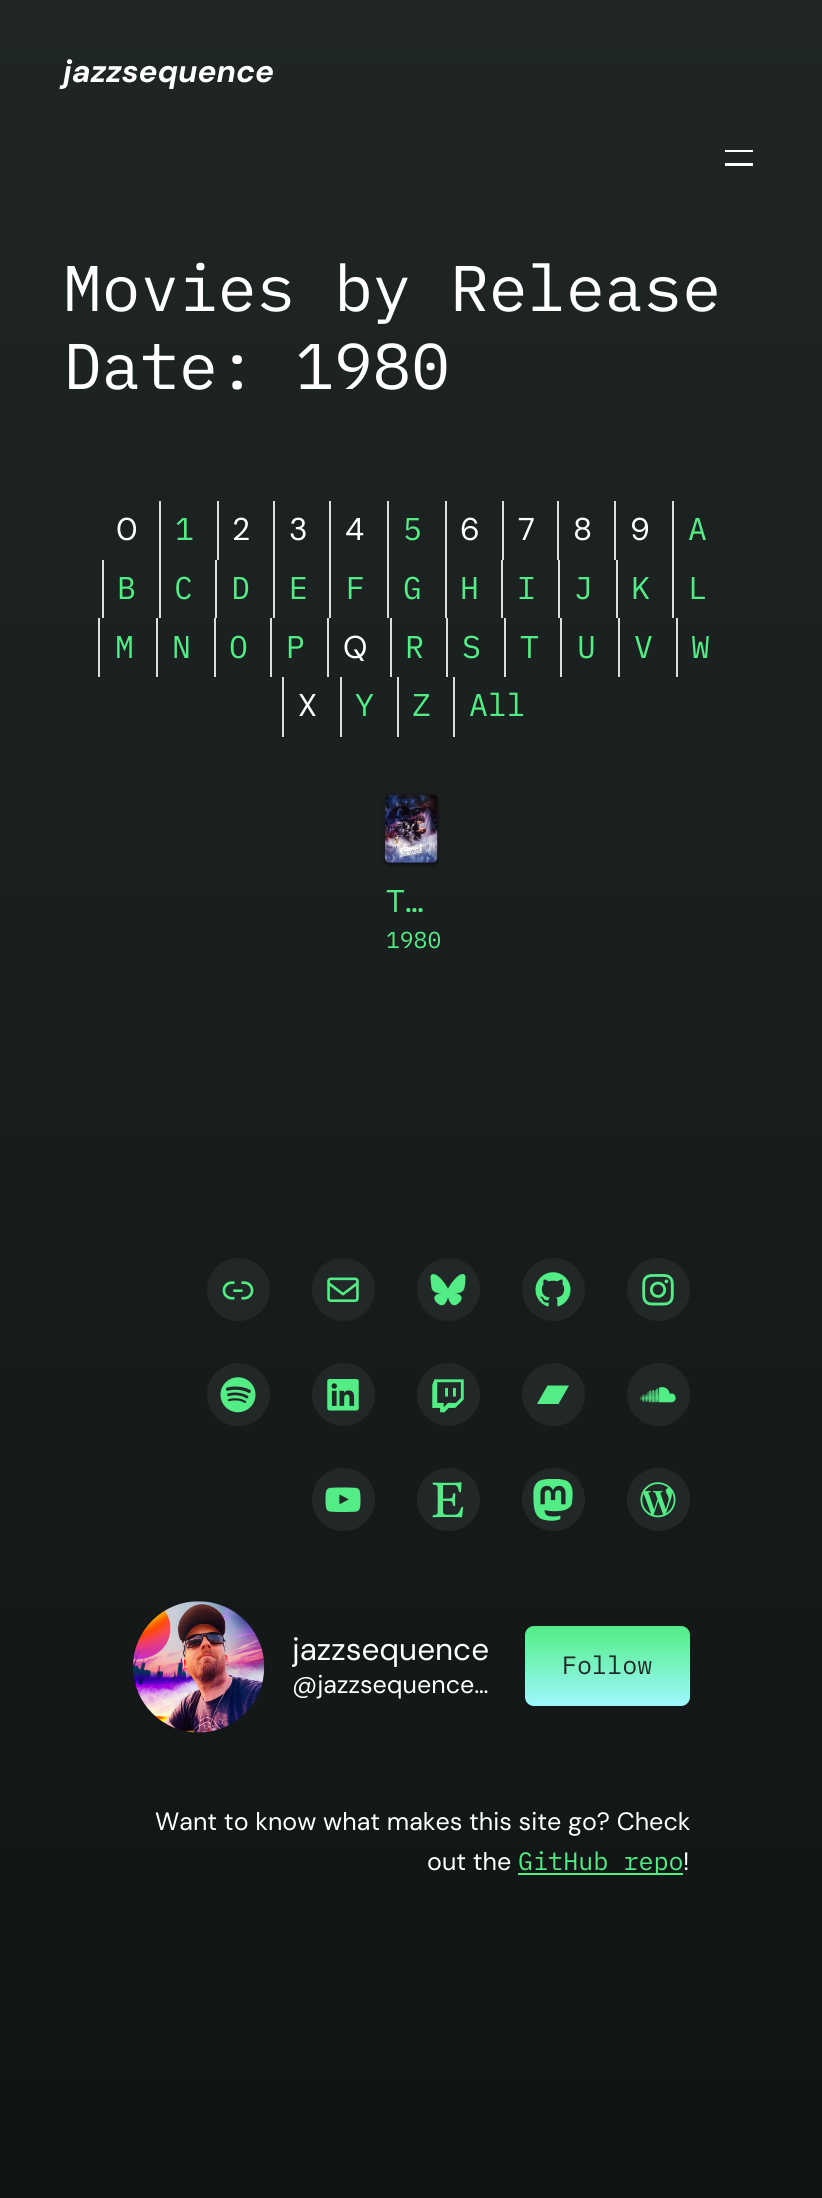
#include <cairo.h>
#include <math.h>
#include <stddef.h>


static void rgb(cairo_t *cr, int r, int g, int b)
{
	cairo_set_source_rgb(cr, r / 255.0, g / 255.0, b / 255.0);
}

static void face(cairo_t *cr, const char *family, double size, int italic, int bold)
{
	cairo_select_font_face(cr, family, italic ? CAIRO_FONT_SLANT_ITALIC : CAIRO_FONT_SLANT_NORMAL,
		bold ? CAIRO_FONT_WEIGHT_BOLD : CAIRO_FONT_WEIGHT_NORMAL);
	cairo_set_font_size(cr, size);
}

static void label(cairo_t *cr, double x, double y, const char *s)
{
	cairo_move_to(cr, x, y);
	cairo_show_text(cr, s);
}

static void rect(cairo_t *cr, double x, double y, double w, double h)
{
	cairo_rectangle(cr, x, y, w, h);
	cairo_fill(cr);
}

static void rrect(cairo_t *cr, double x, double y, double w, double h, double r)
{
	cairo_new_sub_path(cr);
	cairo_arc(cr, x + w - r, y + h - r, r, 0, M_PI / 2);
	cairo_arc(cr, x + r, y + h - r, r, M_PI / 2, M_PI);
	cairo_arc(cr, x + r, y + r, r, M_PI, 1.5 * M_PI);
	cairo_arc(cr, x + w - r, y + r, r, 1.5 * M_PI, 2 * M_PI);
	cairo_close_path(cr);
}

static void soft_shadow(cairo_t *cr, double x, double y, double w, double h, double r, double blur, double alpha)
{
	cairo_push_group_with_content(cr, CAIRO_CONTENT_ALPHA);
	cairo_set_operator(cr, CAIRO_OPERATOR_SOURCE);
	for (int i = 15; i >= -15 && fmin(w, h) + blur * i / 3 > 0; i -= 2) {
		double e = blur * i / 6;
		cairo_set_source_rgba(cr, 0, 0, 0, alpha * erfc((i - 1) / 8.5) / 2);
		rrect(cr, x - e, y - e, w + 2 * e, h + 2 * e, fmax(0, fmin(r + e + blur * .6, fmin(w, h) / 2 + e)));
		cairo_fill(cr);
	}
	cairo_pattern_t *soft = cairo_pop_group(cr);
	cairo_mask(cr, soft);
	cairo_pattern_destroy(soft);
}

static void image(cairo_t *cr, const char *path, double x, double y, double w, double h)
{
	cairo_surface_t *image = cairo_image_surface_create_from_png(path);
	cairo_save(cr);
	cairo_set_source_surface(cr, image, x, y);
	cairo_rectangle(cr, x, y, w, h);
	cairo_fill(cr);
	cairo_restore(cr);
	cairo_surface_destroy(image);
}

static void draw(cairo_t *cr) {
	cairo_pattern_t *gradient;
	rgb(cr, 255, 255, 255);
	cairo_paint(cr);
	gradient = cairo_pattern_create_linear(411, 0, 411, 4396);
	cairo_pattern_add_color_stop_rgba(gradient, 0, 0.125, 0.149, 0.149, 1);
	cairo_pattern_add_color_stop_rgba(gradient, 1, 0.004, 0.004, 0.004, 1);
	cairo_set_source(cr, gradient);
	cairo_pattern_destroy(gradient);
	rect(cr, 0, 0, 822, 2198);
	face(cr, "DM Sans", 31.5, 1, 1);
	rgb(cr, 255, 255, 255);
	label(cr, 63, 82, "jazzsequence");
	rect(cr, 725, 150, 28, 2);
	rect(cr, 725, 163, 28, 3);
	face(cr, "IBM Plex Mono", 64.5, 0, 0);
	label(cr, 63, 311, "Movies by Release");
	label(cr, 63, 389, "Date: 1980");
	face(cr, "DM Sans", 31.5, 0, 0);
	label(cr, 116, 540, "0");
	rgb(cr, 221, 221, 221);
	rect(cr, 159, 501, 2, 117);
	face(cr, "IBM Plex Mono", 31.5, 0, 0);
	rgb(cr, 83, 237, 133);
	label(cr, 175, 540, "1");
	rgb(cr, 221, 221, 221);
	rect(cr, 217, 501, 2, 59);
	face(cr, "DM Sans", 31.5, 0, 0);
	rgb(cr, 255, 255, 255);
	label(cr, 232, 540, "2");
	rgb(cr, 221, 221, 221);
	rect(cr, 273, 501, 2, 117);
	rgb(cr, 255, 255, 255);
	label(cr, 289, 540, "3");
	rgb(cr, 221, 221, 221);
	rect(cr, 329, 501, 2, 117);
	rgb(cr, 255, 255, 255);
	label(cr, 345, 540, "4");
	rgb(cr, 221, 221, 221);
	rect(cr, 387, 501, 2, 117);
	face(cr, "IBM Plex Mono", 31.5, 0, 0);
	rgb(cr, 83, 237, 133);
	label(cr, 403, 540, "5");
	rgb(cr, 221, 221, 221);
	rect(cr, 445, 501, 2, 117);
	face(cr, "DM Sans", 31.5, 0, 0);
	rgb(cr, 255, 255, 255);
	label(cr, 460, 540, "6");
	rgb(cr, 221, 221, 221);
	rect(cr, 502, 501, 2, 59);
	rgb(cr, 255, 255, 255);
	label(cr, 518, 540, "7");
	rgb(cr, 221, 221, 221);
	rect(cr, 557, 501, 2, 59);
	rgb(cr, 255, 255, 255);
	label(cr, 573, 540, "8");
	rgb(cr, 221, 221, 221);
	rect(cr, 614, 501, 2, 59);
	rgb(cr, 255, 255, 255);
	label(cr, 630, 540, "9");
	rgb(cr, 221, 221, 221);
	rect(cr, 672, 501, 2, 117);
	face(cr, "IBM Plex Mono", 31.5, 0, 0);
	rgb(cr, 83, 237, 133);
	label(cr, 688, 540, "A");
	rgb(cr, 221, 221, 221);
	rect(cr, 102, 560, 2, 58);
	rgb(cr, 83, 237, 133);
	label(cr, 117, 599, "B");
	label(cr, 174, 599, "C");
	rgb(cr, 221, 221, 221);
	rect(cr, 215, 560, 2, 58);
	rgb(cr, 83, 237, 133);
	label(cr, 231, 599, "D");
	label(cr, 289, 599, "E");
	label(cr, 346, 599, "F");
	label(cr, 403, 599, "G");
	label(cr, 460, 599, "H");
	rgb(cr, 221, 221, 221);
	rect(cr, 501, 560, 2, 58);
	rgb(cr, 83, 237, 133);
	label(cr, 517, 599, "I");
	rgb(cr, 221, 221, 221);
	rect(cr, 558, 560, 2, 58);
	rgb(cr, 83, 237, 133);
	label(cr, 574, 599, "J");
	rgb(cr, 221, 221, 221);
	rect(cr, 616, 560, 2, 58);
	rgb(cr, 83, 237, 133);
	label(cr, 631, 599, "K");
	label(cr, 688, 599, "L");
	rgb(cr, 221, 221, 221);
	rect(cr, 98, 618, 2, 59);
	rgb(cr, 83, 237, 133);
	label(cr, 115, 658, "M");
	rgb(cr, 221, 221, 221);
	rect(cr, 156, 618, 2, 59);
	rgb(cr, 83, 237, 133);
	label(cr, 172, 658, "N");
	rgb(cr, 221, 221, 221);
	rect(cr, 214, 618, 2, 59);
	rgb(cr, 83, 237, 133);
	label(cr, 229, 658, "O");
	rgb(cr, 221, 221, 221);
	rect(cr, 270, 618, 2, 59);
	rgb(cr, 83, 237, 133);
	label(cr, 286, 658, "P");
	rgb(cr, 221, 221, 221);
	rect(cr, 327, 618, 2, 59);
	face(cr, "DM Sans", 31.5, 0, 0);
	rgb(cr, 255, 255, 255);
	label(cr, 343, 658, "Q");
	rgb(cr, 221, 221, 221);
	rect(cr, 390, 618, 2, 59);
	face(cr, "IBM Plex Mono", 31.5, 0, 0);
	rgb(cr, 83, 237, 133);
	label(cr, 405, 658, "R");
	rgb(cr, 221, 221, 221);
	rect(cr, 446, 618, 2, 59);
	rgb(cr, 83, 237, 133);
	label(cr, 462, 658, "S");
	rgb(cr, 221, 221, 221);
	rect(cr, 504, 618, 2, 59);
	rgb(cr, 83, 237, 133);
	label(cr, 520, 658, "T");
	rgb(cr, 221, 221, 221);
	rect(cr, 560, 618, 2, 59);
	rgb(cr, 83, 237, 133);
	label(cr, 577, 658, "U");
	rgb(cr, 221, 221, 221);
	rect(cr, 618, 618, 2, 59);
	rgb(cr, 83, 237, 133);
	label(cr, 634, 658, "V");
	rgb(cr, 221, 221, 221);
	rect(cr, 676, 618, 2, 59);
	rgb(cr, 83, 237, 133);
	label(cr, 691, 658, "W");
	rgb(cr, 221, 221, 221);
	rect(cr, 282, 677, 2, 60);
	face(cr, "DM Sans", 31.5, 0, 0);
	rgb(cr, 255, 255, 255);
	label(cr, 298, 716, "X");
	rgb(cr, 221, 221, 221);
	rect(cr, 340, 677, 2, 60);
	face(cr, "IBM Plex Mono", 31.5, 0, 0);
	rgb(cr, 83, 237, 133);
	label(cr, 355, 716, "Y");
	rgb(cr, 221, 221, 221);
	rect(cr, 397, 677, 2, 60);
	rgb(cr, 83, 237, 133);
	label(cr, 412, 716, "Z");
	rgb(cr, 221, 221, 221);
	rect(cr, 453, 677, 2, 60);
	rgb(cr, 83, 237, 133);
	label(cr, 469, 716, "All");
	rgb(cr, 0, 0, 0);
	soft_shadow(cr, 385, 796, 53, 69, 5, 2, 0.5);
	image(cr, "image0.png", 385, 794, 53, 69);
	rgb(cr, 83, 237, 133);
	label(cr, 386, 912, "T…");
	face(cr, "IBM Plex Mono", 23, 0, 0);
	label(cr, 386, 948, "1980");
	rgb(cr, 34, 40, 40);
	cairo_new_path(cr);
	cairo_arc(cr, 238.5, 1289.5, 31.5, 0, 2 * M_PI);
	cairo_fill(cr);
	image(cr, "image1.png", 222, 1281, 32, 19);
	cairo_arc(cr, 343.5, 1289.5, 31.5, 0, 2 * M_PI);
	cairo_fill(cr);
	image(cr, "image2.png", 327, 1277, 32, 25);
	cairo_arc(cr, 448.5, 1289.5, 31.5, 0, 2 * M_PI);
	cairo_fill(cr);
	image(cr, "image3.png", 430, 1274, 36, 32);
	cairo_arc(cr, 553.5, 1289.5, 31.5, 0, 2 * M_PI);
	cairo_fill(cr);
	image(cr, "image4.png", 535, 1272, 36, 35);
	cairo_arc(cr, 658.5, 1289.5, 31.5, 0, 2 * M_PI);
	cairo_fill(cr);
	image(cr, "image5.png", 642, 1274, 32, 32);
	cairo_arc(cr, 238.5, 1394.5, 31.5, 0, 2 * M_PI);
	cairo_fill(cr);
	image(cr, "image6.png", 220, 1377, 36, 36);
	cairo_arc(cr, 343.5, 1394.5, 31.5, 0, 2 * M_PI);
	cairo_fill(cr);
	image(cr, "image7.png", 327, 1379, 32, 32);
	cairo_arc(cr, 448.5, 1394.5, 31.5, 0, 2 * M_PI);
	cairo_fill(cr);
	image(cr, "image8.png", 432, 1379, 32, 34);
	cairo_arc(cr, 553.5, 1394.5, 31.5, 0, 2 * M_PI);
	cairo_fill(cr);
	rgb(cr, 83, 237, 133);
	cairo_new_path(cr);
	cairo_move_to(cr, 558.5, 1404);
	cairo_line_to(cr, 537, 1404);
	cairo_line_to(cr, 547.5, 1385.5);
	cairo_line_to(cr, 569, 1385.5);
	cairo_line_to(cr, 558.5, 1404);
	cairo_fill(cr);
	rgb(cr, 34, 40, 40);
	cairo_arc(cr, 658.5, 1394.5, 31.5, 0, 2 * M_PI);
	cairo_fill(cr);
	image(cr, "image9.png", 640, 1387, 36, 16);
	cairo_arc(cr, 343.5, 1499.5, 31.5, 0, 2 * M_PI);
	cairo_fill(cr);
	image(cr, "image10.png", 325, 1487, 36, 26);
	cairo_arc(cr, 448.5, 1499.5, 31.5, 0, 2 * M_PI);
	cairo_fill(cr);
	image(cr, "image11.png", 432, 1482, 32, 36);
	cairo_arc(cr, 553.5, 1499.5, 31.5, 0, 2 * M_PI);
	cairo_fill(cr);
	image(cr, "image12.png", 533, 1479, 40, 42);
	cairo_arc(cr, 658.5, 1499.5, 31.5, 0, 2 * M_PI);
	cairo_fill(cr);
	image(cr, "image13.png", 640, 1482, 36, 36);
	image(cr, "image14.png", 133, 1601, 132, 132);
	cairo_save(cr);
	cairo_rectangle(cr, 292, 1633, 205, 37);
	cairo_clip(cr);
	face(cr, "DM Sans", 31.5, 0, 0);
	rgb(cr, 255, 255, 255);
	label(cr, 292, 1660, "jazzsequence");
	cairo_restore(cr);
	face(cr, "DM Sans", 25.1, 0, 0);
	rgb(cr, 255, 255, 255);
	label(cr, 292, 1693, "@jazzsequence…");
	gradient = cairo_pattern_create_linear(607, 1626, 607, 1706);
	cairo_pattern_add_color_stop_rgba(gradient, 0, 0.325, 0.929, 0.522, 1);
	cairo_pattern_add_color_stop_rgba(gradient, 1, 0.62, 0.976, 0.992, 1);
	cairo_set_source(cr, gradient);
	cairo_pattern_destroy(gradient);
	rrect(cr, 525, 1626, 165, 80, 9);
	cairo_fill(cr);
	face(cr, "IBM Plex Mono", 25.1, 0, 0);
	rgb(cr, 34, 40, 40);
	label(cr, 562, 1674, "Follow");
	face(cr, "DM Sans", 25.1, 0, 0);
	rgb(cr, 255, 255, 255);
	label(cr, 155, 1830, "Want to know what makes this site go? Check");
	label(cr, 427, 1870, "out the");
	rgb(cr, 83, 237, 133);
	rect(cr, 518, 1873, 165, 2);
	face(cr, "IBM Plex Mono", 25.1, 0, 0);
	label(cr, 518, 1870, "GitHub repo");
	face(cr, "DM Sans", 25.1, 0, 0);
	rgb(cr, 255, 255, 255);
	label(cr, 683, 1870, "!");
}

int main(void) {
	cairo_surface_t *surface = cairo_image_surface_create(CAIRO_FORMAT_RGB24, 822, 2198);
	cairo_t *cr = cairo_create(surface);
	cairo_font_options_t *options = cairo_font_options_create();
	cairo_font_options_set_hint_metrics(options, CAIRO_HINT_METRICS_OFF);
	cairo_font_options_set_hint_style(options, CAIRO_HINT_STYLE_NONE);
	cairo_set_font_options(cr, options);
	cairo_set_miter_limit(cr, 4);
	draw(cr);
	cairo_surface_write_to_png(surface, "render.png");
	cairo_font_options_destroy(options);
	cairo_destroy(cr);
	cairo_surface_destroy(surface);
	return 0;
}
